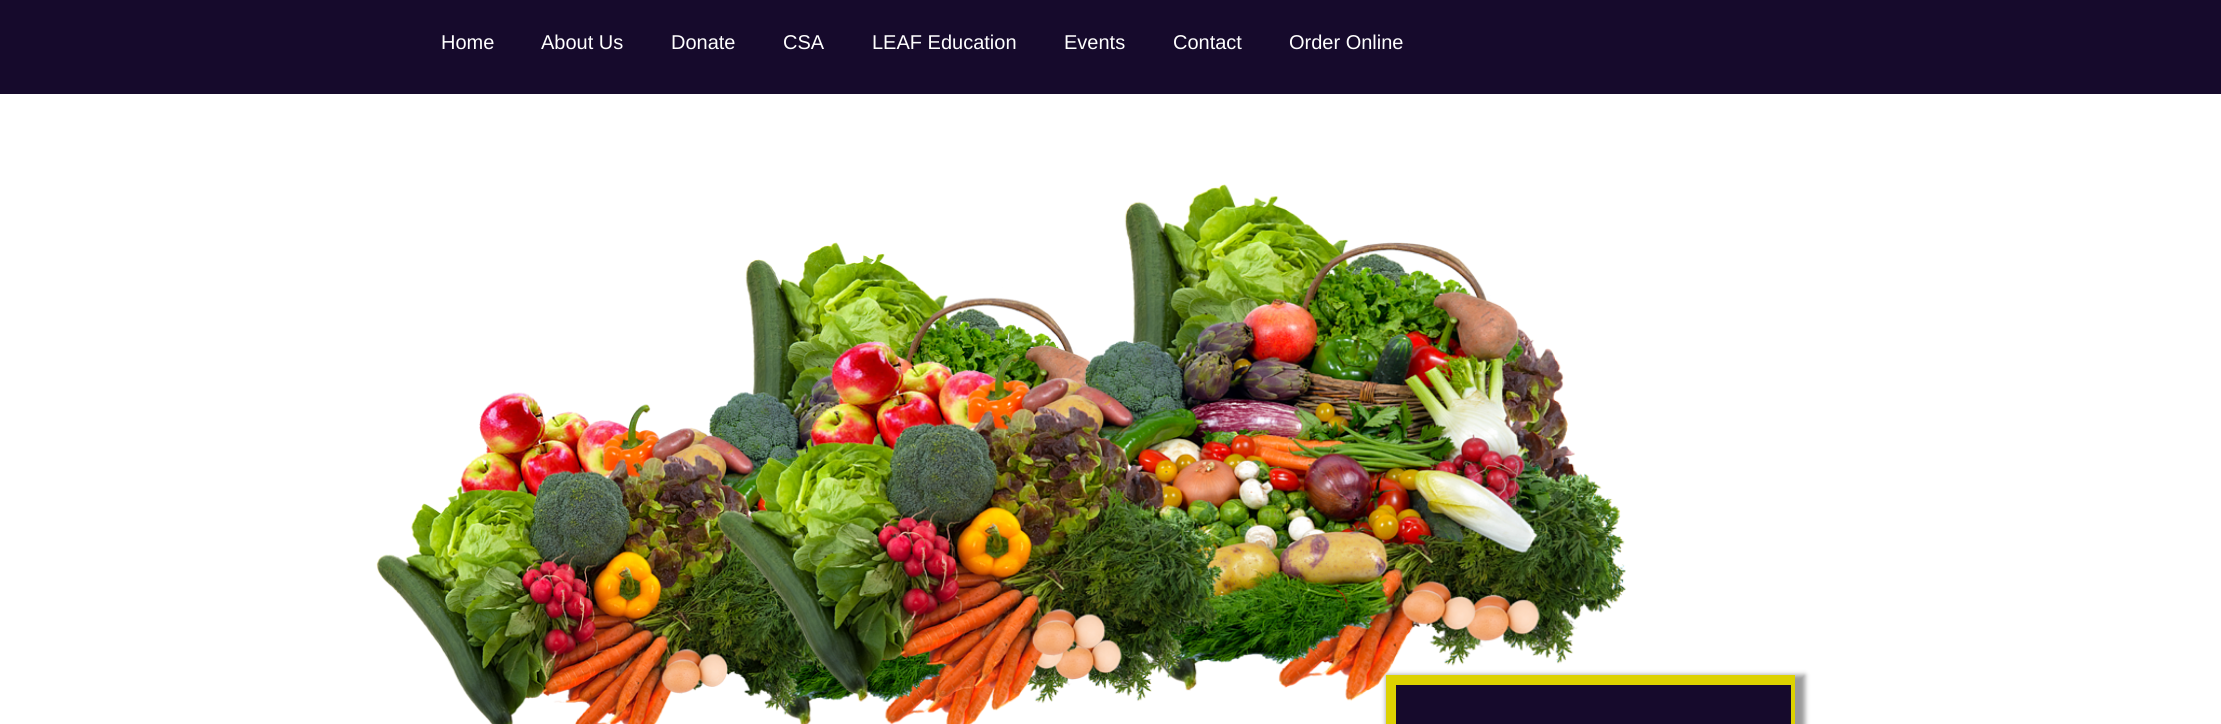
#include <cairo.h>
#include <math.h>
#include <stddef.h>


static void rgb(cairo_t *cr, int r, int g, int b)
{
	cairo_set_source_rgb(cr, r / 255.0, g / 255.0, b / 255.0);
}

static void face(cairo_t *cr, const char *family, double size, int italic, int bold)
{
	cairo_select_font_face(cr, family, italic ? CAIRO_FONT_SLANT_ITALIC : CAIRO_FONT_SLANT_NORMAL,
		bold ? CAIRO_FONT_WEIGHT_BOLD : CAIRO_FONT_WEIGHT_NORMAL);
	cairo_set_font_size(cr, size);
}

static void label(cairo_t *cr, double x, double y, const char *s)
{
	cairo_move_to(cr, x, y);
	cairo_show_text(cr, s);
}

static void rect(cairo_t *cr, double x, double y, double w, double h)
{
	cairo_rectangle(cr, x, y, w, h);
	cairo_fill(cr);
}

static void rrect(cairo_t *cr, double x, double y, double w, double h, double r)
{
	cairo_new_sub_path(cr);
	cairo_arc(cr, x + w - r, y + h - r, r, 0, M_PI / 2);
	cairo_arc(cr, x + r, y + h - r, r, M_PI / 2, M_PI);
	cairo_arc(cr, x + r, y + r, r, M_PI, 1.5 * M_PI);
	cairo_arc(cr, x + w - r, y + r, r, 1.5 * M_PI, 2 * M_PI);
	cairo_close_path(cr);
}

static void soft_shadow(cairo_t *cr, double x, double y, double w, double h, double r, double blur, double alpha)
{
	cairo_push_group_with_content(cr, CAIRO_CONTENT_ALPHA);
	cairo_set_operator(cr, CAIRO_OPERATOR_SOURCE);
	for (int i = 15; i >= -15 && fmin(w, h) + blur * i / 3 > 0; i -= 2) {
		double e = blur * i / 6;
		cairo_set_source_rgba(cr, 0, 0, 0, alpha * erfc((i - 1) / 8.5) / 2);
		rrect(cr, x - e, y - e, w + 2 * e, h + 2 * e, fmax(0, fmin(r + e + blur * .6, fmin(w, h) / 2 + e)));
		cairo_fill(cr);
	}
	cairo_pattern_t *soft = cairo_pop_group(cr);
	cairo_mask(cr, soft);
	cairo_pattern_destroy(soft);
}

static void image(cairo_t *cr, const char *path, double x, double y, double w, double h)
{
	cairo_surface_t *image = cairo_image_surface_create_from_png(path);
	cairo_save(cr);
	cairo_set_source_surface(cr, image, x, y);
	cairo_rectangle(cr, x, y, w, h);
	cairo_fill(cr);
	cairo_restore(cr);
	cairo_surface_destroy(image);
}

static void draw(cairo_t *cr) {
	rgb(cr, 255, 255, 255);
	cairo_paint(cr);
	rgb(cr, 22, 10, 44);
	rect(cr, 0, 0, 2221, 94);
	face(cr, "Liberation Sans", 20, 0, 0);
	rgb(cr, 255, 255, 255);
	label(cr, 441, 49, "Home");
	label(cr, 541, 49, "About Us");
	label(cr, 671, 49, "Donate");
	label(cr, 783, 49, "CSA");
	label(cr, 872, 49, "LEAF Education");
	label(cr, 1064, 49, "Events");
	label(cr, 1173, 49, "Contact");
	label(cr, 1289, 49, "Order Online");
	image(cr, "image1.png", 376, 242, 780, 482);
	rgb(cr, 153, 153, 153);
	soft_shadow(cr, 1386, 675, 419, 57, 0, 2.5, 1);
	rgb(cr, 22, 10, 44);
	rect(cr, 1396, 685, 395, 39);
	rgb(cr, 221, 210, 0);
	rect(cr, 1396, 675, 395, 10);
	rect(cr, 1386, 675, 10, 49);
	image(cr, "image0.png", 717, 184, 909, 527);
	rect(cr, 1791, 675, 4, 49);
}

int main(void) {
	cairo_surface_t *surface = cairo_image_surface_create(CAIRO_FORMAT_RGB24, 2221, 724);
	cairo_t *cr = cairo_create(surface);
	cairo_font_options_t *options = cairo_font_options_create();
	cairo_font_options_set_hint_metrics(options, CAIRO_HINT_METRICS_OFF);
	cairo_font_options_set_hint_style(options, CAIRO_HINT_STYLE_NONE);
	cairo_set_font_options(cr, options);
	cairo_set_miter_limit(cr, 4);
	draw(cr);
	cairo_surface_write_to_png(surface, "render.png");
	cairo_font_options_destroy(options);
	cairo_destroy(cr);
	cairo_surface_destroy(surface);
	return 0;
}
